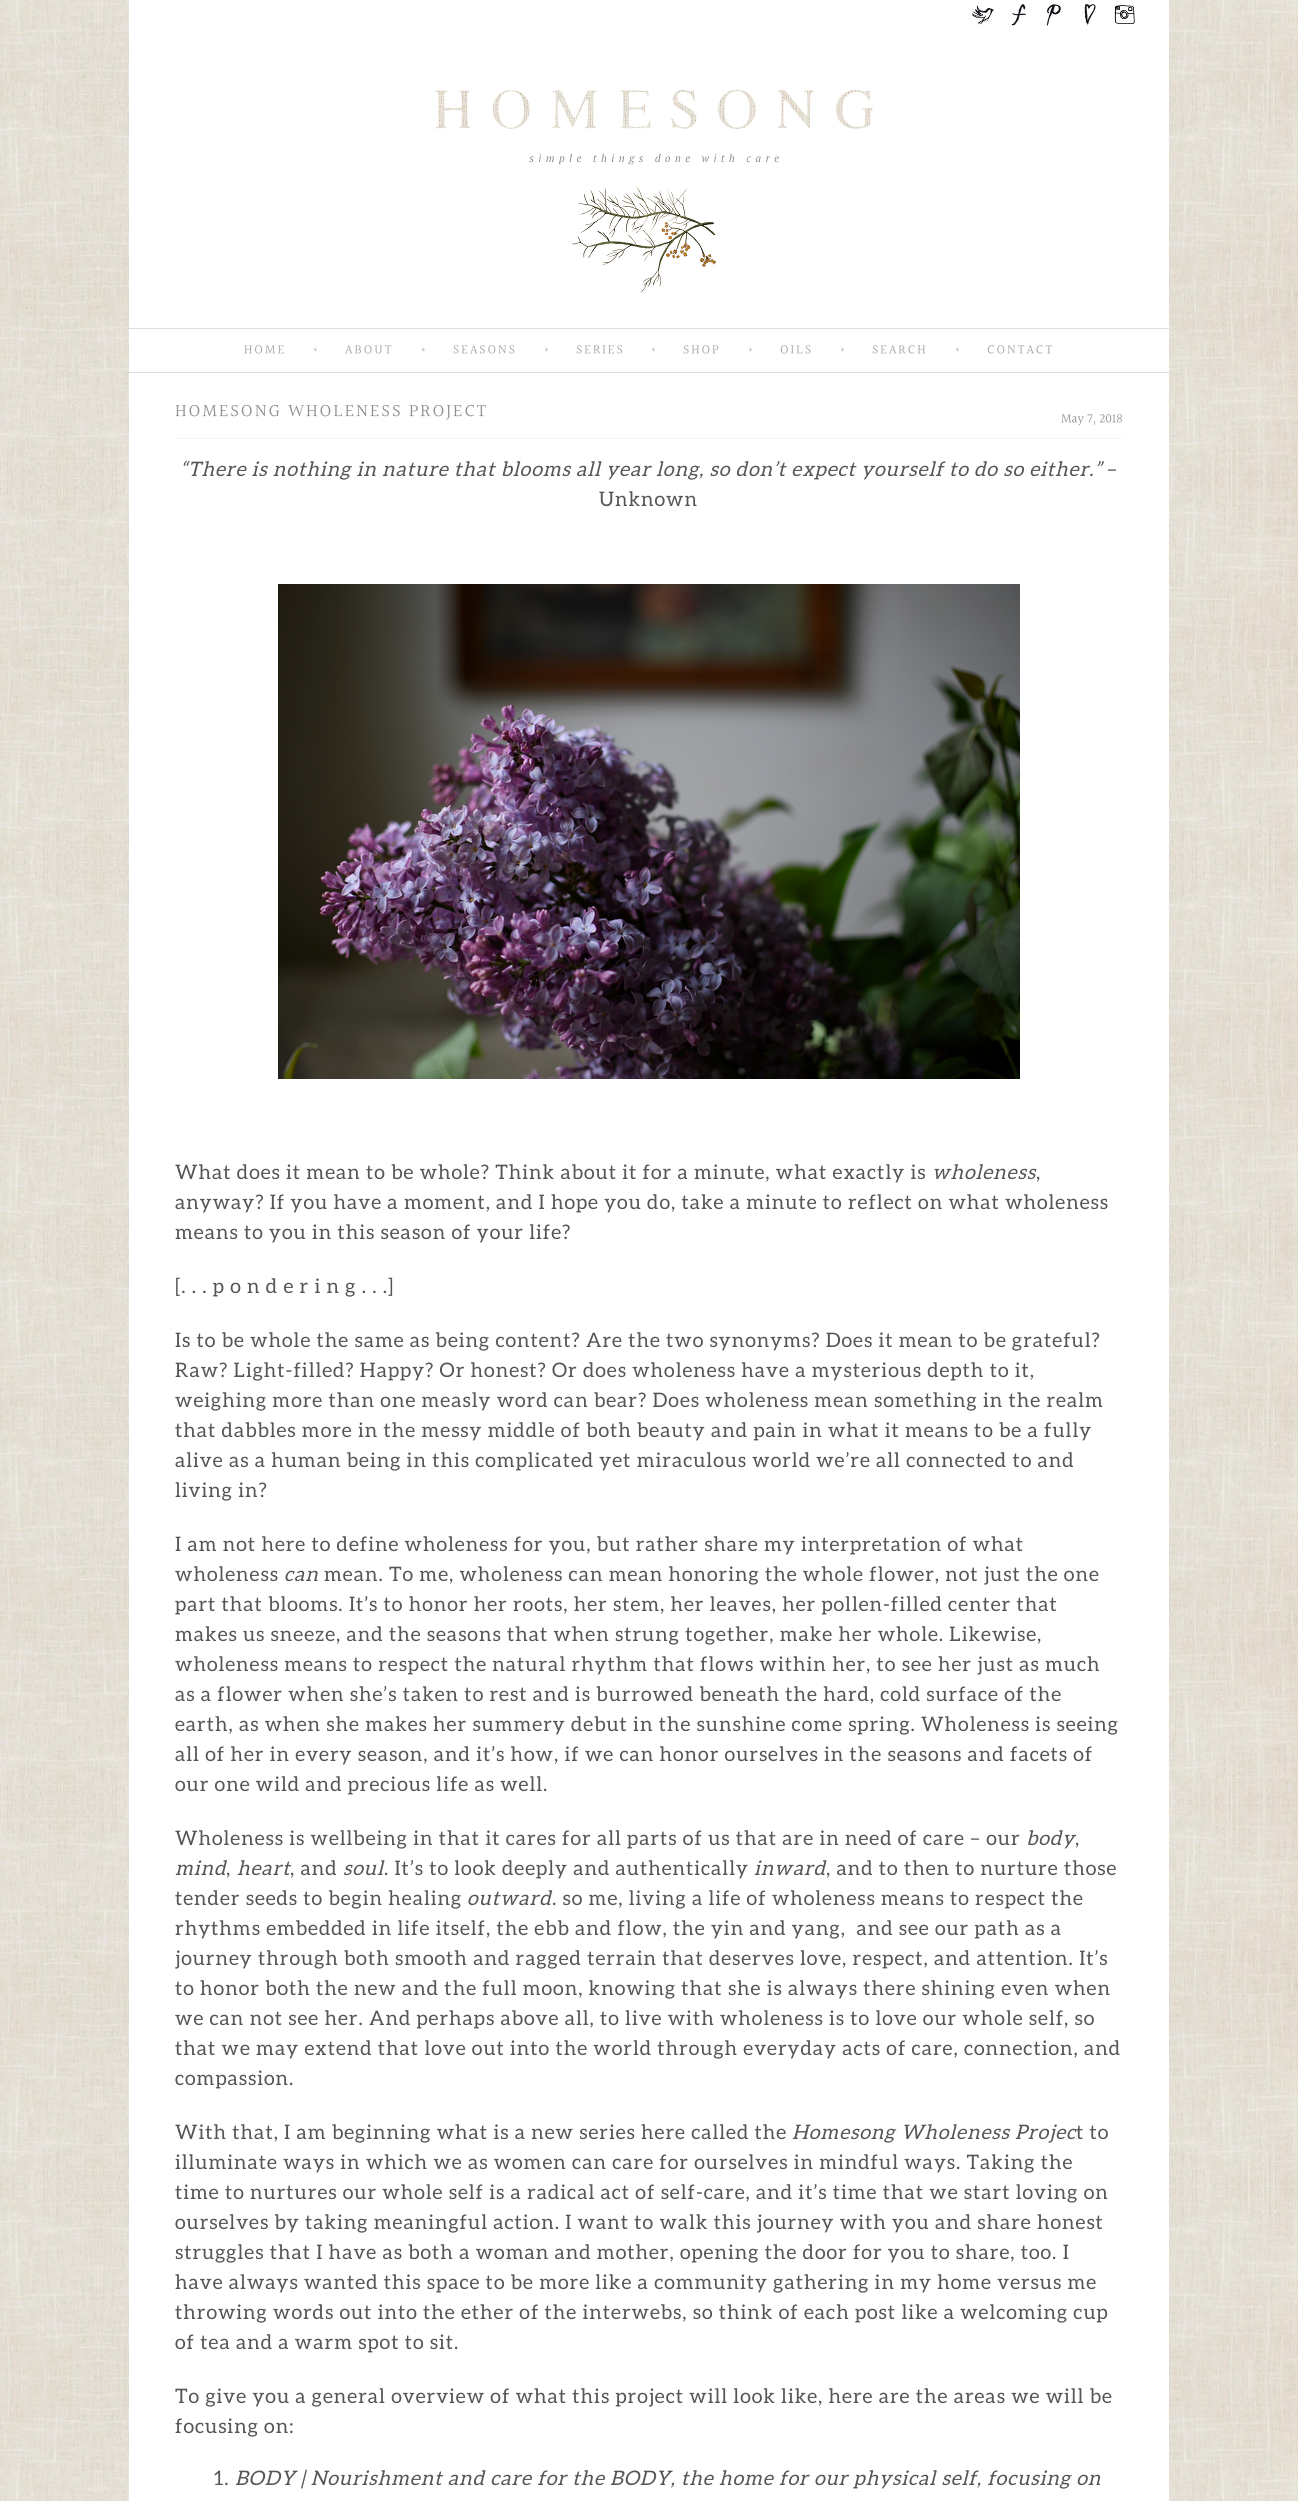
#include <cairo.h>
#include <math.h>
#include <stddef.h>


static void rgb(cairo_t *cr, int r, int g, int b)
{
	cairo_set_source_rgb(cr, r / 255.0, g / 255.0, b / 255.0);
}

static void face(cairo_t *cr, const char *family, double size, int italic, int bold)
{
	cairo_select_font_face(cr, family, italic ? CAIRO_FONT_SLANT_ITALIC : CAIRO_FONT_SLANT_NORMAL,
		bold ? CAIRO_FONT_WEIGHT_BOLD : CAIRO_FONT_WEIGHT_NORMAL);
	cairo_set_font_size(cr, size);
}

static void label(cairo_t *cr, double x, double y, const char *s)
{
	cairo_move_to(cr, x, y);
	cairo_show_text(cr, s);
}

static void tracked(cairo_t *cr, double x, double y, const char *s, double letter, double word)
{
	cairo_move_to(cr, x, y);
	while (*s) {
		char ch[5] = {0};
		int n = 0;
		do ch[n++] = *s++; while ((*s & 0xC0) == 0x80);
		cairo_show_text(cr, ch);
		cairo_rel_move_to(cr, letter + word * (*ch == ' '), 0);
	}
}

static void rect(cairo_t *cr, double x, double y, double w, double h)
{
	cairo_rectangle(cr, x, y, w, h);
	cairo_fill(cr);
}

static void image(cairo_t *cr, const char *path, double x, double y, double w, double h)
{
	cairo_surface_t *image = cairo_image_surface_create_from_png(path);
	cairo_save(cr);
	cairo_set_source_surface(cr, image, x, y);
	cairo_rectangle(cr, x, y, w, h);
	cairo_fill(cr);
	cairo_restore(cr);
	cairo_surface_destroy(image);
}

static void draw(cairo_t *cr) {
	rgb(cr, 255, 255, 255);
	cairo_paint(cr);
	image(cr, "image0.png", 0, 0, 1298, 2501);
	rgb(cr, 255, 255, 255);
	rect(cr, 129, 0, 1040, 328);
	image(cr, "image1.png", 972, 5, 22, 20);
	image(cr, "image2.png", 1011, 4, 15, 22);
	image(cr, "image3.png", 1046, 4, 15, 22);
	image(cr, "image4.png", 1084, 4, 12, 22);
	image(cr, "image5.png", 1114, 4, 22, 21);
	image(cr, "image6.png", 435, 89, 438, 204);
	rect(cr, 129, 329, 1040, 43);
	rgb(cr, 221, 221, 221);
	rect(cr, 129, 328, 1040, 1);
	rect(cr, 129, 372, 1040, 1);
	face(cr, "Halant", 13, 0, 0);
	rgb(cr, 163, 162, 162);
	tracked(cr, 244, 354, "HOME", 2, 0);
	image(cr, "image7.png", 312, 345, 6, 8);
	tracked(cr, 345, 354, "ABOUT", 2, 0);
	image(cr, "image7.png", 420, 345, 6, 8);
	tracked(cr, 453, 354, "SEASONS", 2, 0);
	image(cr, "image7.png", 543, 345, 6, 8);
	tracked(cr, 576, 354, "SERIES", 2, 0);
	image(cr, "image7.png", 650, 345, 6, 8);
	tracked(cr, 683, 354, "SHOP", 2, 0);
	image(cr, "image7.png", 747, 345, 6, 8);
	tracked(cr, 780, 354, "OILS", 2, 0);
	image(cr, "image7.png", 839, 345, 6, 8);
	tracked(cr, 872, 354, "SEARCH", 2, 0);
	image(cr, "image7.png", 954, 345, 6, 8);
	tracked(cr, 987, 354, "CONTACT", 2, 0);
	rgb(cr, 255, 255, 255);
	rect(cr, 129, 373, 1040, 2128);
	face(cr, "Halant", 18, 0, 0);
	rgb(cr, 144, 144, 143);
	tracked(cr, 175, 417, "HOMESONG WHOLENESS PROJECT", 2, 0);
	face(cr, "Halant", 13, 0, 0);
	label(cr, 1061, 423, "May 7, 2018");
	rgb(cr, 246, 244, 241);
	rect(cr, 175, 438, 948, 1);
	face(cr, "Aleo", 20, 1, 0);
	rgb(cr, 86, 86, 86);
	tracked(cr, 180, 476, "“There is nothing in nature that blooms all year long, so don’t expect yourself to do so either.”", 1, 0);
	face(cr, "Aleo", 20, 0, 0);
	tracked(cr, 1107, 476, "–", 1, 0);
	tracked(cr, 599, 506, "Unknown", 1, 0);
	image(cr, "image8.png", 278, 584, 742, 495);
	tracked(cr, 175, 1179, "What does it mean to be whole? Think about it for a minute, what exactly is", 1, 0);
	face(cr, "Aleo", 20, 1, 0);
	tracked(cr, 932, 1179, "wholeness", 1, 0);
	face(cr, "Aleo", 20, 0, 0);
	tracked(cr, 1036, 1179, ",", 1, 0);
	tracked(cr, 175, 1209, "anyway? If you have a moment, and I hope you do, take a minute to reflect on what wholeness", 1, 0);
	tracked(cr, 175, 1239, "means to you in this season of your life?", 1, 0);
	tracked(cr, 175, 1293, "[. . . p o n d e r i n g . . .]", 1, 0);
	tracked(cr, 175, 1347, "Is to be whole the same as being content? Are the two synonyms? Does it mean to be grateful?", 1, 0);
	tracked(cr, 175, 1377, "Raw? Light-filled? Happy? Or honest? Or does wholeness have a mysterious depth to it,", 1, 0);
	tracked(cr, 175, 1407, "weighing more than one measly word can bear? Does wholeness mean something in the realm", 1, 0);
	tracked(cr, 175, 1437, "that dabbles more in the messy middle of both beauty and pain in what it means to be a fully", 1, 0);
	tracked(cr, 175, 1467, "alive as a human being in this complicated yet miraculous world we’re all connected to and", 1, 0);
	tracked(cr, 175, 1497, "living in?", 1, 0);
	tracked(cr, 175, 1551, "I am not here to define wholeness for you, but rather share my interpretation of what", 1, 0);
	tracked(cr, 175, 1581, "wholeness", 1, 0);
	face(cr, "Aleo", 20, 1, 0);
	tracked(cr, 284, 1581, "can", 1, 0);
	face(cr, "Aleo", 20, 0, 0);
	tracked(cr, 324, 1581, "mean. To me, wholeness can mean honoring the whole flower, not just the one", 1, 0);
	tracked(cr, 175, 1611, "part that blooms. It’s to honor her roots, her stem, her leaves, her pollen-filled center that", 1, 0);
	tracked(cr, 175, 1641, "makes us sneeze, and the seasons that when strung together, make her whole. Likewise,", 1, 0);
	tracked(cr, 175, 1671, "wholeness means to respect the natural rhythm that flows within her, to see her just as much", 1, 0);
	tracked(cr, 175, 1701, "as a flower when she’s taken to rest and is burrowed beneath the hard, cold surface of the", 1, 0);
	tracked(cr, 175, 1731, "earth, as when she makes her summery debut in the sunshine come spring. Wholeness is seeing", 1, 0);
	tracked(cr, 175, 1761, "all of her in every season, and it’s how, if we can honor ourselves in the seasons and facets of", 1, 0);
	tracked(cr, 175, 1791, "our one wild and precious life as well.", 1, 0);
	tracked(cr, 175, 1845, "Wholeness is wellbeing in that it cares for all parts of us that are in need of care – our", 1, 0);
	face(cr, "Aleo", 20, 1, 0);
	tracked(cr, 1026, 1845, "body", 1, 0);
	face(cr, "Aleo", 20, 0, 0);
	tracked(cr, 1075, 1845, ",", 1, 0);
	face(cr, "Aleo", 20, 1, 0);
	tracked(cr, 175, 1875, "mind", 1, 0);
	face(cr, "Aleo", 20, 0, 0);
	tracked(cr, 226, 1875, ",", 1, 0);
	face(cr, "Aleo", 20, 1, 0);
	tracked(cr, 237, 1875, "heart", 1, 0);
	face(cr, "Aleo", 20, 0, 0);
	tracked(cr, 290, 1875, ", and", 1, 0);
	face(cr, "Aleo", 20, 1, 0);
	tracked(cr, 343, 1875, "soul", 1, 0);
	face(cr, "Aleo", 20, 0, 0);
	tracked(cr, 384, 1875, ". It’s to look deeply and authentically", 1, 0);
	face(cr, "Aleo", 20, 1, 0);
	tracked(cr, 754, 1875, "inward", 1, 0);
	face(cr, "Aleo", 20, 0, 0);
	tracked(cr, 826, 1875, ", and to then to nurture those", 1, 0);
	tracked(cr, 175, 1905, "tender seeds to begin healing", 1, 0);
	face(cr, "Aleo", 20, 1, 0);
	tracked(cr, 467, 1905, "outward", 1, 0);
	face(cr, "Aleo", 20, 0, 0);
	tracked(cr, 552, 1905, ". so me, living a life of wholeness means to respect the", 1, 0);
	tracked(cr, 175, 1935, "rhythms embedded in life itself, the ebb and flow, the yin and yang,  and see our path as a", 1, 0);
	tracked(cr, 175, 1965, "journey through both smooth and ragged terrain that deserves love, respect, and attention. It’s", 1, 0);
	tracked(cr, 175, 1995, "to honor both the new and the full moon, knowing that she is always there shining even when", 1, 0);
	tracked(cr, 175, 2025, "we can not see her. And perhaps above all, to live with wholeness is to love our whole self, so", 1, 0);
	tracked(cr, 175, 2055, "that we may extend that love out into the world through everyday acts of care, connection, and", 1, 0);
	tracked(cr, 175, 2085, "compassion.", 1, 0);
	tracked(cr, 175, 2139, "With that, I am beginning what is a new series here called the", 1, 0);
	face(cr, "Aleo", 20, 1, 0);
	tracked(cr, 792, 2139, "Homesong Wholeness Projec", 1, 0);
	face(cr, "Aleo", 20, 0, 0);
	tracked(cr, 1076, 2139, "t to", 1, 0);
	tracked(cr, 175, 2169, "illuminate ways in which we as women can care for ourselves in mindful ways. Taking the", 1, 0);
	tracked(cr, 175, 2199, "time to nurtures our whole self is a radical act of self-care, and it’s time that we start loving on", 1, 0);
	tracked(cr, 175, 2229, "ourselves by taking meaningful action. I want to walk this journey with you and share honest", 1, 0);
	tracked(cr, 175, 2259, "struggles that I have as both a woman and mother, opening the door for you to share, too. I", 1, 0);
	tracked(cr, 175, 2289, "have always wanted this space to be more like a community gathering in my home versus me", 1, 0);
	tracked(cr, 175, 2319, "throwing words out into the ether of the interwebs, so think of each post like a welcoming cup", 1, 0);
	tracked(cr, 175, 2349, "of tea and a warm spot to sit.", 1, 0);
	tracked(cr, 175, 2403, "To give you a general overview of what this project will look like, here are the areas we will be", 1, 0);
	tracked(cr, 175, 2433, "focusing on:", 1, 0);
	tracked(cr, 214, 2485, "1.", 1, 0);
	face(cr, "Aleo", 20, 1, 0);
	tracked(cr, 235, 2485, "BODY | Nourishment and care for the BODY, the home for our physical self, focusing on", 1, 0);
}

int main(void) {
	cairo_surface_t *surface = cairo_image_surface_create(CAIRO_FORMAT_RGB24, 1298, 2501);
	cairo_t *cr = cairo_create(surface);
	cairo_font_options_t *options = cairo_font_options_create();
	cairo_font_options_set_hint_metrics(options, CAIRO_HINT_METRICS_OFF);
	cairo_font_options_set_hint_style(options, CAIRO_HINT_STYLE_NONE);
	cairo_set_font_options(cr, options);
	cairo_set_miter_limit(cr, 4);
	draw(cr);
	cairo_surface_write_to_png(surface, "render.png");
	cairo_font_options_destroy(options);
	cairo_destroy(cr);
	cairo_surface_destroy(surface);
	return 0;
}
